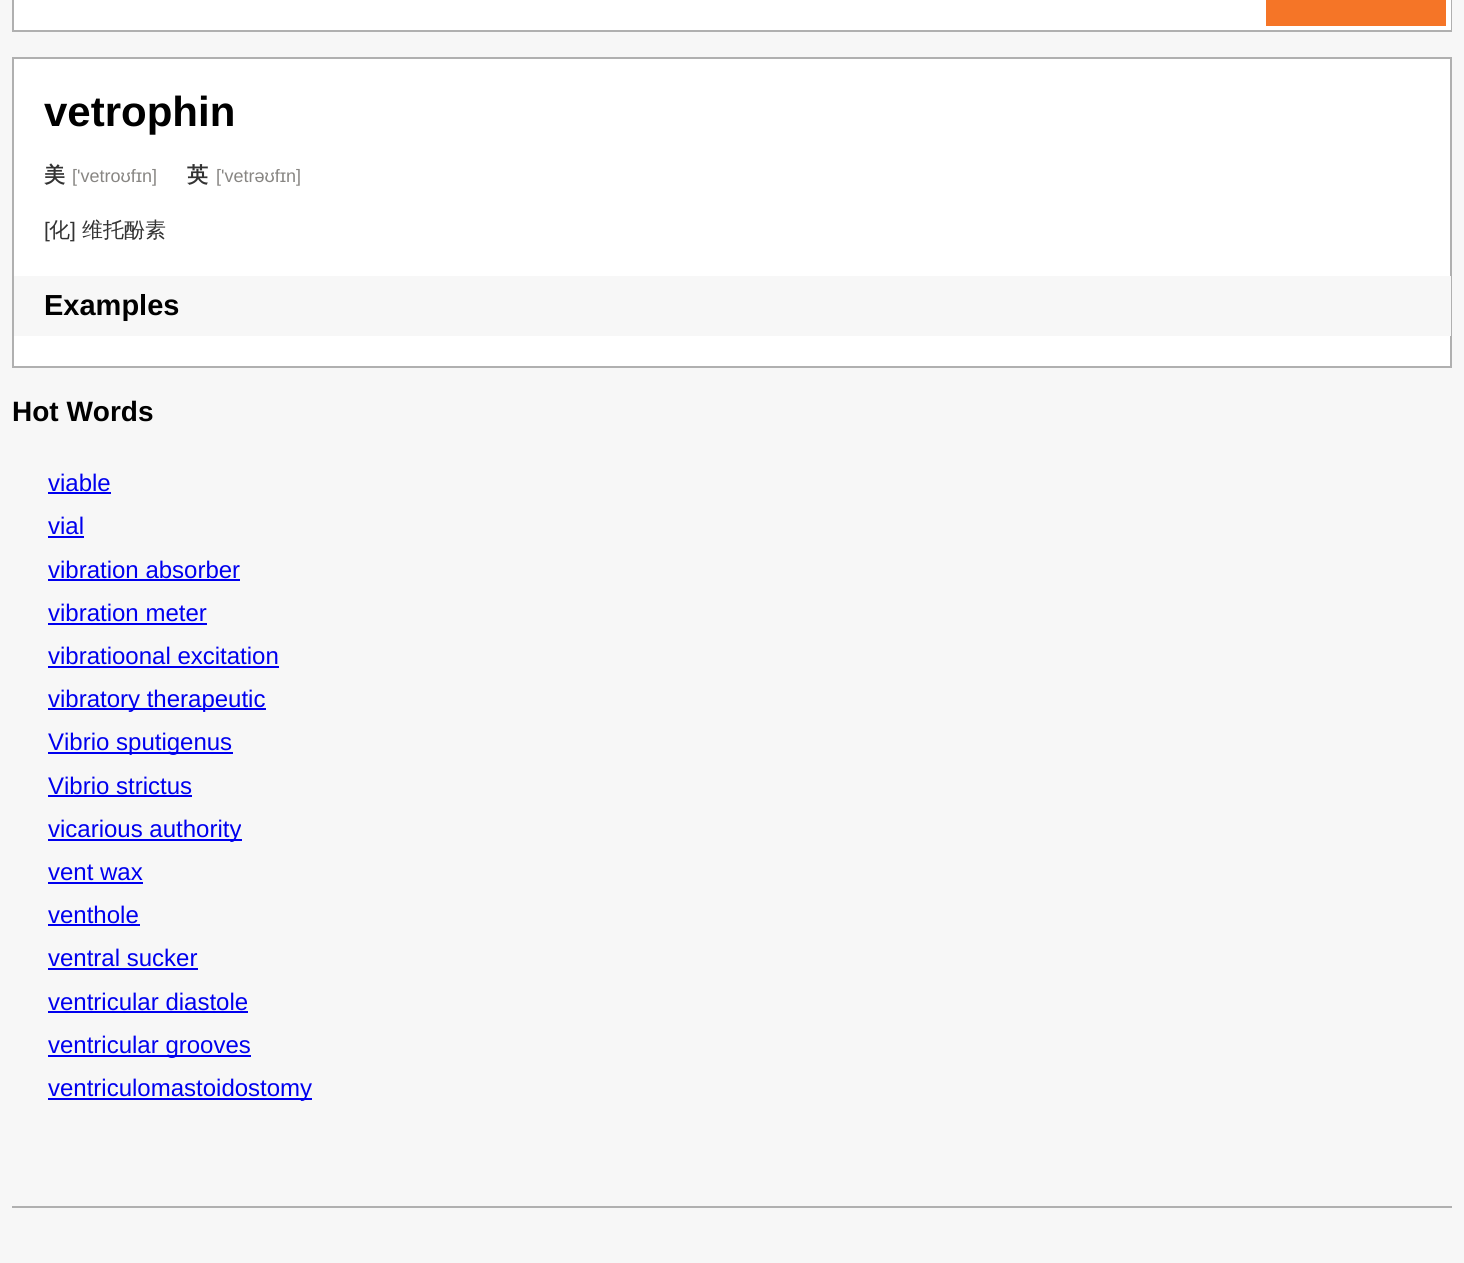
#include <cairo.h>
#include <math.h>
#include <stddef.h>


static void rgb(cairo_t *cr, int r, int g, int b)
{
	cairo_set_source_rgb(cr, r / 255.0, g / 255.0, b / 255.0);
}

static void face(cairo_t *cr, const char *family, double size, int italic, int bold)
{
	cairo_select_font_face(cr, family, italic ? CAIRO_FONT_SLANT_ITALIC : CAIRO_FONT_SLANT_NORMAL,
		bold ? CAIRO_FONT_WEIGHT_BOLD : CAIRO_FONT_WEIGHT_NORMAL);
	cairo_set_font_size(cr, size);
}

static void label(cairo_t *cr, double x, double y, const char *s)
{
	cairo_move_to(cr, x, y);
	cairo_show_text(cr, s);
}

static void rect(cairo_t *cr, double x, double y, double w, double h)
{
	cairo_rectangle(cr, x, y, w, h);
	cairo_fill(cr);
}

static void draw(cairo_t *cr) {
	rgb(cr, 247, 247, 247);
	cairo_paint(cr);
	cairo_rectangle(cr, 13, -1, 1438, 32);
	rgb(cr, 176, 176, 176);
	cairo_stroke(cr);
	rgb(cr, 255, 255, 255);
	rect(cr, 14, 0, 1437, 30);
	rgb(cr, 245, 117, 39);
	rect(cr, 1266, 0, 180, 26);
	rgb(cr, 255, 255, 255);
	cairo_rectangle(cr, 13, 58, 1438, 309);
	cairo_fill_preserve(cr);
	rgb(cr, 176, 176, 176);
	cairo_stroke(cr);
	face(cr, "Liberation Sans", 42, 0, 1);
	rgb(cr, 0, 0, 0);
	label(cr, 44, 126, "vetrophin");
	face(cr, "WenQuanYi Zen Hei", 21, 0, 1);
	rgb(cr, 51, 51, 51);
	label(cr, 44, 182, "美");
	face(cr, "Liberation Sans", 18, 0, 0);
	rgb(cr, 136, 134, 131);
	label(cr, 72, 182, "['vetroʊfɪn]");
	face(cr, "WenQuanYi Zen Hei", 21, 0, 1);
	rgb(cr, 51, 51, 51);
	label(cr, 187, 182, "英");
	face(cr, "Liberation Sans", 18, 0, 0);
	rgb(cr, 136, 134, 131);
	label(cr, 216, 182, "['vetrəʊfɪn]");
	face(cr, "Liberation Sans", 21, 0, 0);
	rgb(cr, 51, 51, 51);
	label(cr, 44, 237, "[");
	face(cr, "WenQuanYi Zen Hei Medium", 21, 0, 0);
	label(cr, 49, 237, "化");
	face(cr, "Liberation Sans", 21, 0, 0);
	label(cr, 70, 237, "]");
	face(cr, "WenQuanYi Zen Hei Medium", 21, 0, 0);
	label(cr, 82, 237, "维托酚素");
	rgb(cr, 247, 247, 247);
	rect(cr, 14, 276, 1437, 60);
	face(cr, "Liberation Sans", 29, 0, 1);
	rgb(cr, 0, 0, 0);
	label(cr, 44, 315, "Examples");
	face(cr, "Liberation Sans", 28, 0, 1);
	label(cr, 12, 421, "Hot Words");
	face(cr, "Liberation Sans", 24, 0, 0);
	rgb(cr, 0, 0, 238);
	label(cr, 48, 491, "viable");
	rect(cr, 48, 492, 63, 2);
	label(cr, 48, 534, "vial");
	rect(cr, 48, 536, 36, 2);
	label(cr, 48, 578, "vibration absorber");
	rect(cr, 48, 579, 192, 2);
	label(cr, 48, 621, "vibration meter");
	rect(cr, 48, 623, 159, 2);
	label(cr, 48, 664, "vibratioonal excitation");
	rect(cr, 48, 666, 231, 2);
	rect(cr, 48, 708, 218, 2);
	label(cr, 48, 707, "vibratory therapeutic");
	rect(cr, 48, 752, 185, 2);
	label(cr, 48, 750, "Vibrio sputigenus");
	label(cr, 48, 794, "Vibrio strictus");
	rect(cr, 48, 795, 144, 2);
	rect(cr, 48, 839, 194, 2);
	label(cr, 48, 837, "vicarious authority");
	label(cr, 48, 880, "vent wax");
	rect(cr, 48, 882, 95, 2);
	label(cr, 48, 923, "venthole");
	rect(cr, 48, 924, 92, 2);
	label(cr, 48, 966, "ventral sucker");
	rect(cr, 48, 968, 150, 2);
	label(cr, 48, 1010, "ventricular diastole");
	rect(cr, 48, 1011, 200, 2);
	rect(cr, 48, 1055, 203, 2);
	label(cr, 48, 1053, "ventricular grooves");
	rect(cr, 48, 1098, 264, 2);
	label(cr, 48, 1096, "ventriculomastoidostomy");
	rgb(cr, 176, 176, 176);
	rect(cr, 12, 1206, 1440, 2);
}

int main(void) {
	cairo_surface_t *surface = cairo_image_surface_create(CAIRO_FORMAT_RGB24, 1464, 1263);
	cairo_t *cr = cairo_create(surface);
	cairo_font_options_t *options = cairo_font_options_create();
	cairo_font_options_set_hint_metrics(options, CAIRO_HINT_METRICS_OFF);
	cairo_font_options_set_hint_style(options, CAIRO_HINT_STYLE_NONE);
	cairo_set_font_options(cr, options);
	cairo_set_miter_limit(cr, 4);
	draw(cr);
	cairo_surface_write_to_png(surface, "render.png");
	cairo_font_options_destroy(options);
	cairo_destroy(cr);
	cairo_surface_destroy(surface);
	return 0;
}
